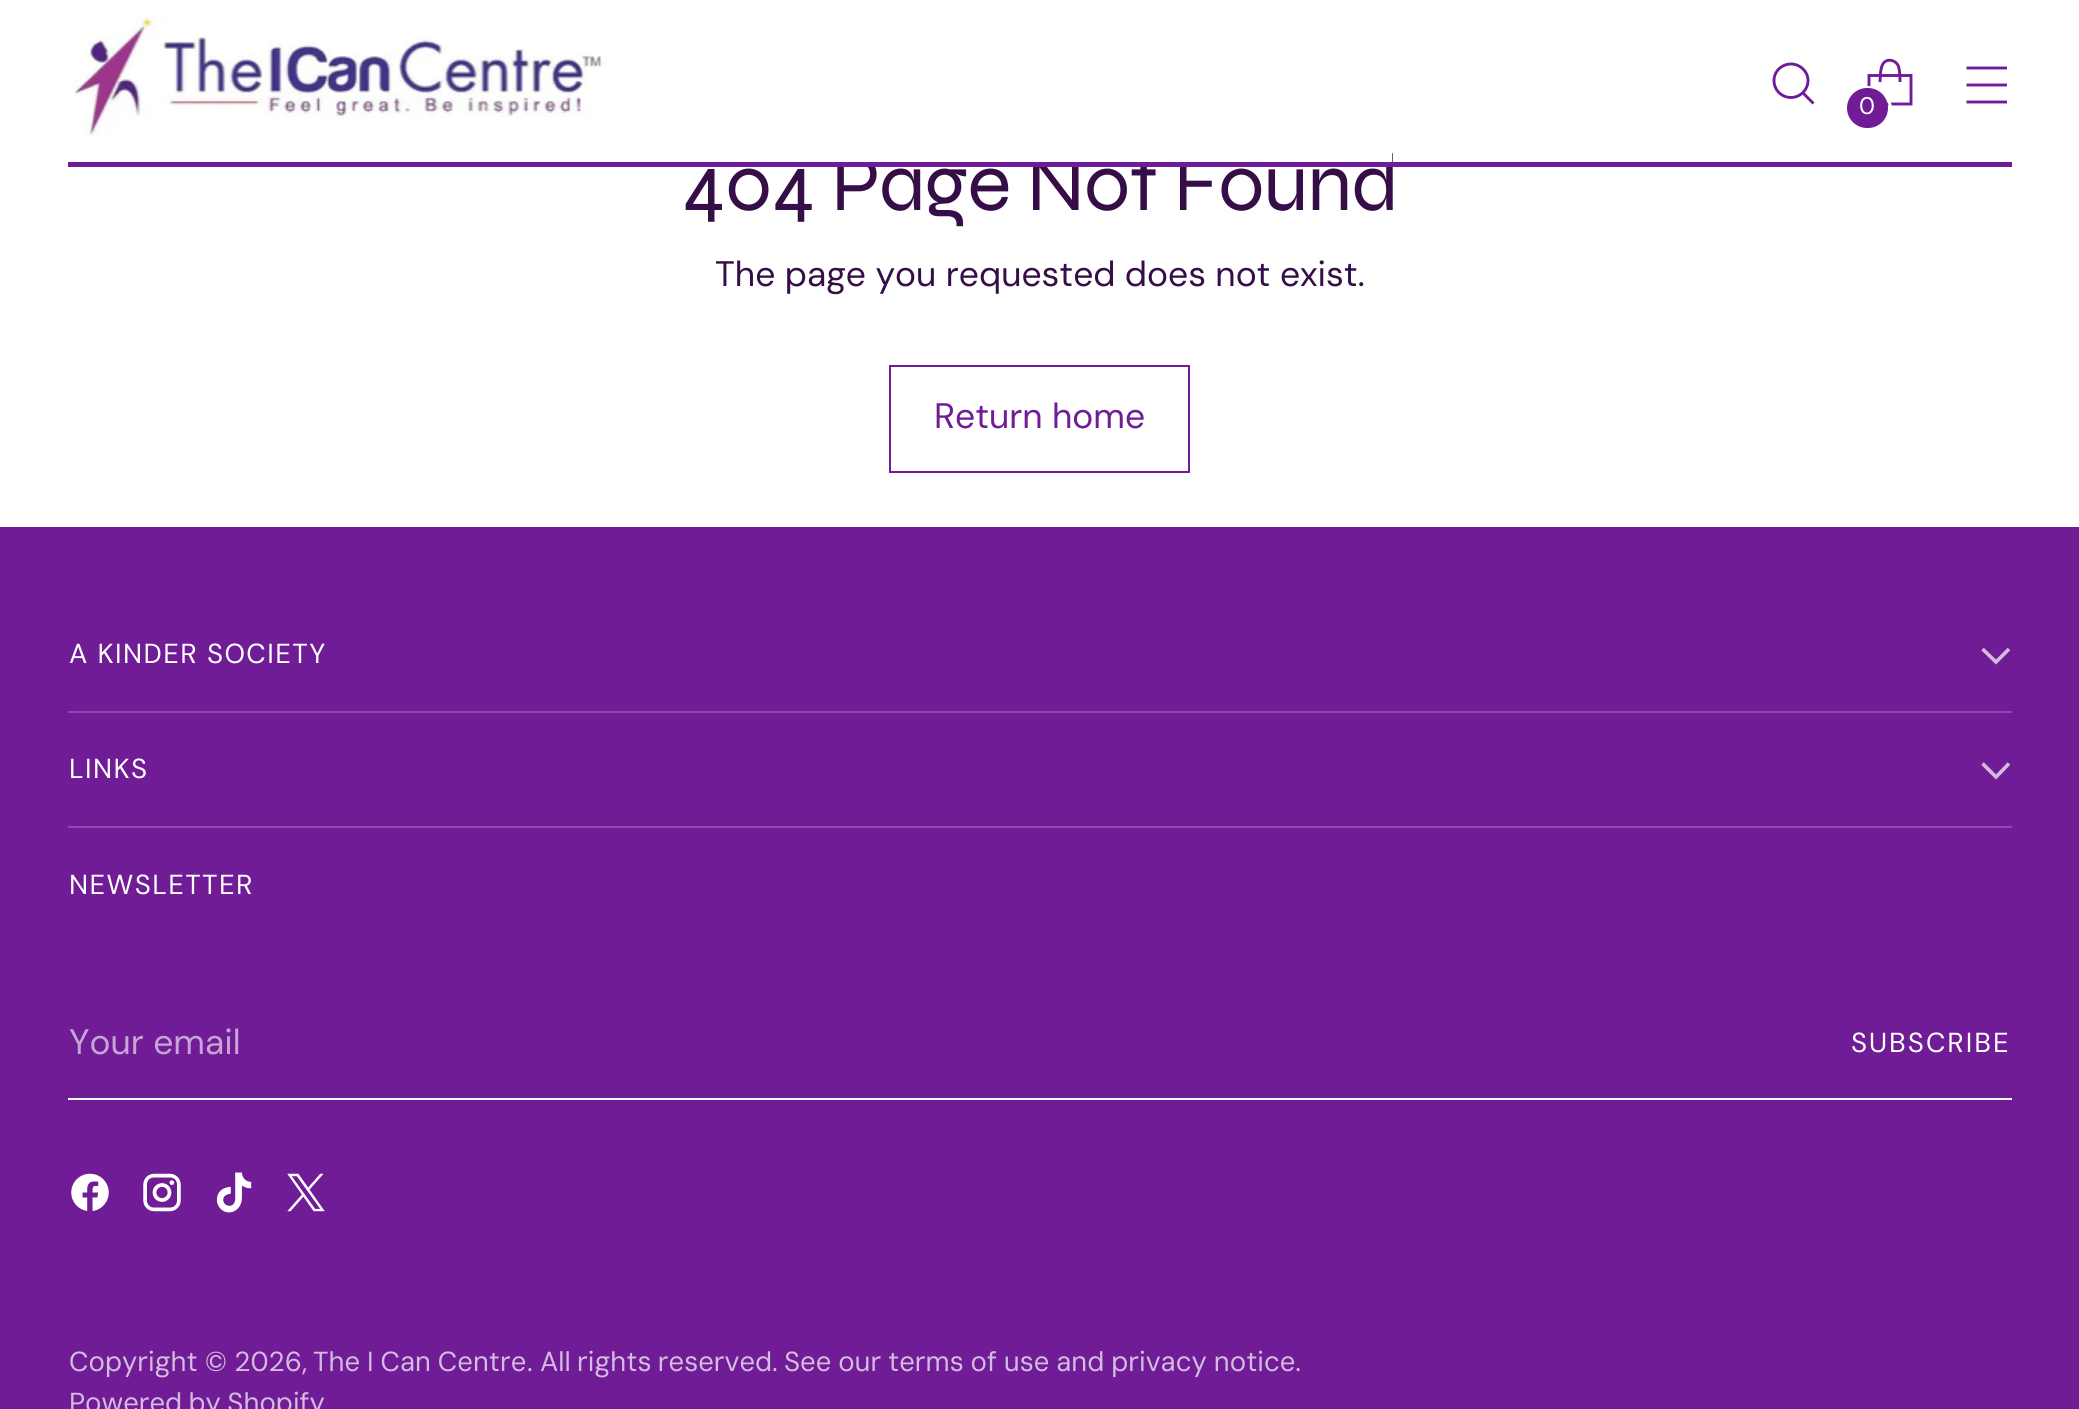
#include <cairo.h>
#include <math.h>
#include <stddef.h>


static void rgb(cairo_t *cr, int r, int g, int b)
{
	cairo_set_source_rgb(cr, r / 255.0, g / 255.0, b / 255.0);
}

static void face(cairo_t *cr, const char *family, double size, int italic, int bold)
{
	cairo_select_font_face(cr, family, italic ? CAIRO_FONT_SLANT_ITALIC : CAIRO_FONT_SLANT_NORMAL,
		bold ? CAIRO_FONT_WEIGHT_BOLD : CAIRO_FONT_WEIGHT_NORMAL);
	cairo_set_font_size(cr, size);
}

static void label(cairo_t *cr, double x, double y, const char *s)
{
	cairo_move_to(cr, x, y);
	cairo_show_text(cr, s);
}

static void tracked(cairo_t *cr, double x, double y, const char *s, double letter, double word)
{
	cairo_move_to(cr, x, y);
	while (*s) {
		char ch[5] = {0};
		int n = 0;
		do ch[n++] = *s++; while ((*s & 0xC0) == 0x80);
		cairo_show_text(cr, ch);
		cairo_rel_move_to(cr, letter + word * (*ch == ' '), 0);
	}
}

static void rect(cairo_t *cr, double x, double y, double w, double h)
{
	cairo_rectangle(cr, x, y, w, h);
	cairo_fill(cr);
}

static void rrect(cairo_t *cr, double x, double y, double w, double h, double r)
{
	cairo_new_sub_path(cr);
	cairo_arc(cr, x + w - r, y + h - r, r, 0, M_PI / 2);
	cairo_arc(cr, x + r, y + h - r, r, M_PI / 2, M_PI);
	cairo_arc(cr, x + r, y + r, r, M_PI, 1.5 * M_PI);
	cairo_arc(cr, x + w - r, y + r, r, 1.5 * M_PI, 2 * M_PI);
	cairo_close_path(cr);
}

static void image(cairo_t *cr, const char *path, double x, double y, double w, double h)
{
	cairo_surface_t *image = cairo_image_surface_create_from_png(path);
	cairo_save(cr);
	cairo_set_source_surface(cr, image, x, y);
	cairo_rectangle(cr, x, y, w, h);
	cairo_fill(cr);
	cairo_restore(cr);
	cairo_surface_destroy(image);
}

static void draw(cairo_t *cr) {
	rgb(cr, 255, 255, 255);
	cairo_paint(cr);
	face(cr, "Syne", 81.25, 0, 0);
	rgb(cr, 53, 14, 71);
	tracked(cr, 682, 210, "404 Page Not Found", -0.8, 0);
	rgb(cr, 255, 255, 255);
	rect(cr, 836, 153, 556, 14);
	rgb(cr, 112, 28, 150);
	rect(cr, 68, 162, 1944, 5);
	image(cr, "image0.png", 73, 17, 532, 119);
	cairo_new_path(cr);
	cairo_move_to(cr, 1791, 97.5);
	cairo_curve_to(cr, 1800, 97.5, 1808, 90, 1808, 80.5);
	cairo_curve_to(cr, 1808, 71.5, 1800, 64, 1791, 64);
	cairo_curve_to(cr, 1781.5, 64, 1774, 71.5, 1774, 80.5);
	cairo_curve_to(cr, 1774, 90, 1781.5, 97.5, 1791, 97.5);
	cairo_close_path(cr);
	cairo_set_line_width(cr, 2.9);
	cairo_set_line_cap(cr, CAIRO_LINE_CAP_ROUND);
	cairo_stroke(cr);
	cairo_new_path(cr);
	cairo_move_to(cr, 1803, 93);
	cairo_line_to(cr, 1813.5, 103.5);
	cairo_set_line_cap(cr, CAIRO_LINE_CAP_BUTT);
	cairo_stroke(cr);
	cairo_new_path(cr);
	cairo_move_to(cr, 1966.5, 85);
	cairo_line_to(cr, 2007, 85);
	cairo_move_to(cr, 1966.5, 68);
	cairo_line_to(cr, 2007, 68);
	cairo_move_to(cr, 1966.5, 102);
	cairo_line_to(cr, 2007, 102);
	cairo_stroke(cr);
	cairo_new_path(cr);
	cairo_move_to(cr, 1900, 82);
	cairo_curve_to(cr, 1900, 77, 1900, 71.5, 1898.5, 66.5);
	cairo_curve_to(cr, 1897.5, 63.5, 1895, 61.5, 1892, 60.5);
	cairo_curve_to(cr, 1879.5, 58, 1880.5, 74, 1880, 82);
	cairo_set_line_join(cr, CAIRO_LINE_JOIN_BEVEL);
	cairo_stroke(cr);
	cairo_new_path(cr);
	cairo_move_to(cr, 1911, 104);
	cairo_line_to(cr, 1911, 75.5);
	cairo_line_to(cr, 1869, 75.5);
	cairo_line_to(cr, 1869, 104);
	cairo_close_path(cr);
	cairo_set_line_join(cr, CAIRO_LINE_JOIN_MITER);
	cairo_stroke(cr);
	cairo_arc(cr, 1868.5, 109.5, 22, 0, 2 * M_PI);
	rgb(cr, 255, 255, 255);
	cairo_set_line_width(cr, 3);
	cairo_stroke(cr);
	rgb(cr, 112, 28, 150);
	rrect(cr, 1847, 88, 41, 40, 20);
	cairo_fill(cr);
	face(cr, "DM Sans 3", 24, 0, 0);
	rgb(cr, 255, 255, 255);
	label(cr, 1859, 114, "0");
	face(cr, "DM Sans", 35.4, 0, 0);
	rgb(cr, 53, 14, 71);
	label(cr, 715, 286, "The page you requested does not exist.");
	cairo_rectangle(cr, 890, 366, 299, 106);
	rgb(cr, 112, 28, 150);
	cairo_set_line_width(cr, 2);
	cairo_stroke(cr);
	label(cr, 934, 428, "Return home");
	rect(cr, 0, 527, 2079, 882);
	rgb(cr, 141, 73, 171);
	rect(cr, 68, 711, 1944, 2);
	face(cr, "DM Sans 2", 27.5, 0, 0);
	rgb(cr, 255, 255, 255);
	tracked(cr, 69, 663, "A KINDER SOCIETY", 1.4, 0);
	cairo_new_path(cr);
	cairo_move_to(cr, 1982.5, 649);
	cairo_line_to(cr, 1996, 662);
	cairo_line_to(cr, 2009, 649);
	rgb(cr, 212, 187, 224);
	cairo_set_line_width(cr, 3.6);
	cairo_stroke(cr);
	rgb(cr, 141, 73, 171);
	rect(cr, 68, 826, 1944, 2);
	rgb(cr, 255, 255, 255);
	tracked(cr, 69, 778, "LINKS", 1.4, 0);
	cairo_new_path(cr);
	cairo_move_to(cr, 1982.5, 763.5);
	cairo_line_to(cr, 1996, 777);
	cairo_line_to(cr, 2009, 763.5);
	rgb(cr, 212, 187, 224);
	cairo_stroke(cr);
	rgb(cr, 255, 255, 255);
	tracked(cr, 69, 894, "NEWSLETTER", 1.4, 0);
	rect(cr, 68, 1098, 1944, 2);
	face(cr, "DM Sans", 35.4, 0, 0);
	rgb(cr, 198, 164, 213);
	label(cr, 69, 1054, "Your email");
	face(cr, "DM Sans 2", 27.5, 0, 0);
	rgb(cr, 255, 255, 255);
	tracked(cr, 1851, 1052, "SUBSCRIBE", 2, 0);
	image(cr, "image1.png", 71, 1173, 38, 38);
	image(cr, "image2.png", 143, 1173, 38, 39);
	image(cr, "image3.png", 216, 1172, 36, 41);
	image(cr, "image4.png", 287, 1173, 38, 39);
	rgb(cr, 212, 187, 224);
	label(cr, 69, 1371, "Copyright © 2026,");
	tracked(cr, 313, 1371, "The I Can Centre", 0, -0.5);
	label(cr, 527, 1371, ".");
	tracked(cr, 540, 1371, "All rights reserved.", 0, -1);
	tracked(cr, 784, 1371, "See our terms of use and privacy notice.", 0, -0.5);
	tracked(cr, 69, 1412, "Powered by Shopify", 0, -1);
}

int main(void) {
	cairo_surface_t *surface = cairo_image_surface_create(CAIRO_FORMAT_RGB24, 2079, 1409);
	cairo_t *cr = cairo_create(surface);
	cairo_font_options_t *options = cairo_font_options_create();
	cairo_font_options_set_hint_metrics(options, CAIRO_HINT_METRICS_OFF);
	cairo_font_options_set_hint_style(options, CAIRO_HINT_STYLE_NONE);
	cairo_set_font_options(cr, options);
	cairo_set_miter_limit(cr, 4);
	draw(cr);
	cairo_surface_write_to_png(surface, "render.png");
	cairo_font_options_destroy(options);
	cairo_destroy(cr);
	cairo_surface_destroy(surface);
	return 0;
}
